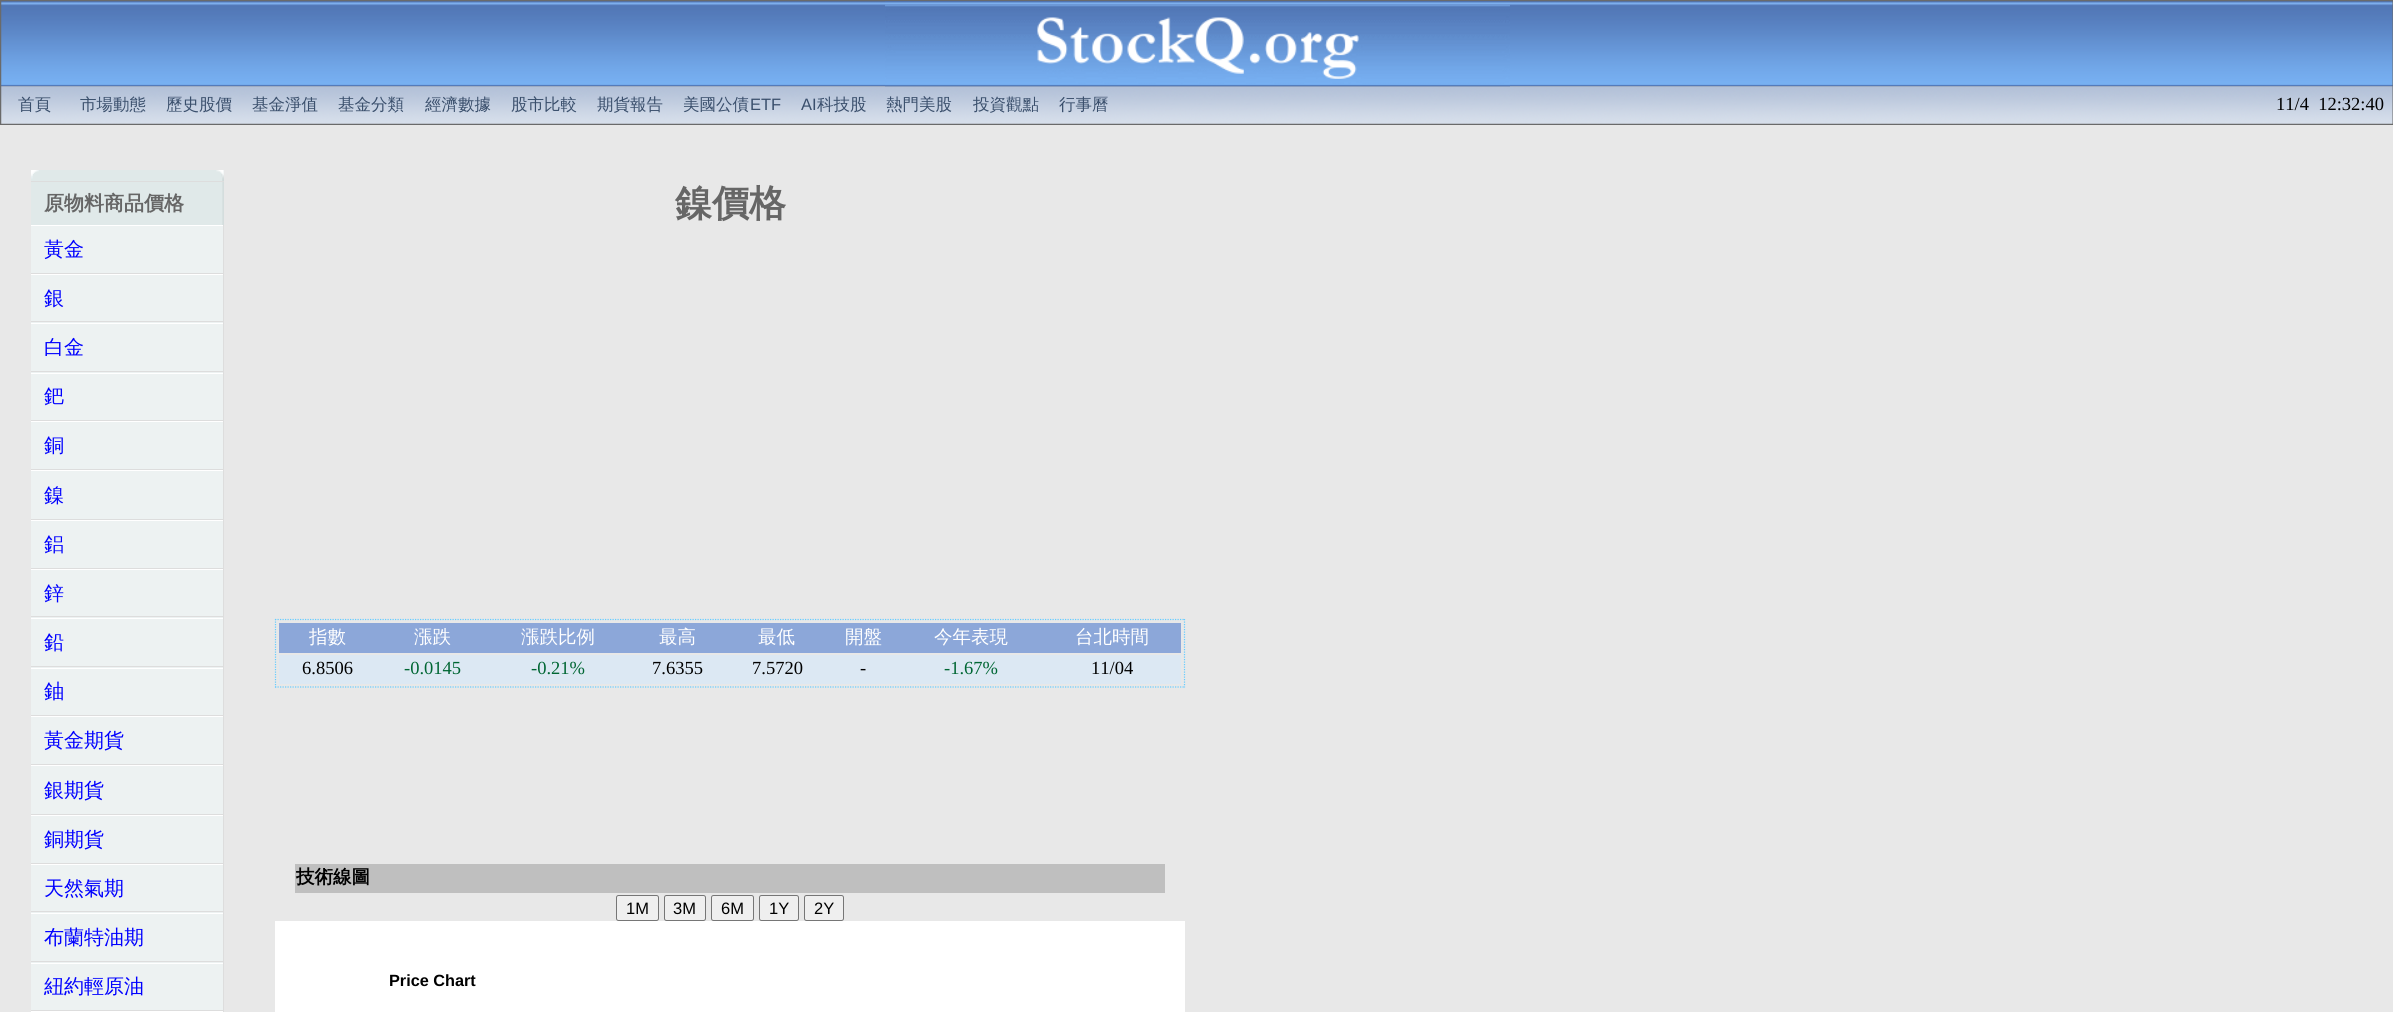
#include <cairo.h>
#include <math.h>
#include <stddef.h>


static void rgb(cairo_t *cr, int r, int g, int b)
{
	cairo_set_source_rgb(cr, r / 255.0, g / 255.0, b / 255.0);
}

static void face(cairo_t *cr, const char *family, double size, int italic, int bold)
{
	cairo_select_font_face(cr, family, italic ? CAIRO_FONT_SLANT_ITALIC : CAIRO_FONT_SLANT_NORMAL,
		bold ? CAIRO_FONT_WEIGHT_BOLD : CAIRO_FONT_WEIGHT_NORMAL);
	cairo_set_font_size(cr, size);
}

static void label(cairo_t *cr, double x, double y, const char *s)
{
	cairo_move_to(cr, x, y);
	cairo_show_text(cr, s);
}

static void rect(cairo_t *cr, double x, double y, double w, double h)
{
	cairo_rectangle(cr, x, y, w, h);
	cairo_fill(cr);
}

static void rrect(cairo_t *cr, double x, double y, double w, double h, double r)
{
	cairo_new_sub_path(cr);
	cairo_arc(cr, x + w - r, y + h - r, r, 0, M_PI / 2);
	cairo_arc(cr, x + r, y + h - r, r, M_PI / 2, M_PI);
	cairo_arc(cr, x + r, y + r, r, M_PI, 1.5 * M_PI);
	cairo_arc(cr, x + w - r, y + r, r, 1.5 * M_PI, 2 * M_PI);
	cairo_close_path(cr);
}

static void image(cairo_t *cr, const char *path, double x, double y, double w, double h)
{
	cairo_surface_t *image = cairo_image_surface_create_from_png(path);
	cairo_save(cr);
	cairo_set_source_surface(cr, image, x, y);
	cairo_rectangle(cr, x, y, w, h);
	cairo_fill(cr);
	cairo_restore(cr);
	cairo_surface_destroy(image);
}

static void draw(cairo_t *cr) {
	rgb(cr, 232, 232, 232);
	cairo_paint(cr);
	rgb(cr, 106, 106, 106);
	rect(cr, 0, 0, 2393, 125);
	image(cr, "image0.png", 1, 1, 2392, 86);
	image(cr, "image2.png", 1, 86, 2392, 38);
	image(cr, "image1.png", 885, 1, 625, 86);
	face(cr, "WenQuanYi Zen Hei Medium", 16.5, 0, 0);
	rgb(cr, 58, 79, 108);
	label(cr, 18, 110, "首頁");
	label(cr, 80, 110, "市場動態");
	label(cr, 166, 110, "歷史股價");
	label(cr, 252, 110, "基金淨值");
	label(cr, 338, 110, "基金分類");
	label(cr, 425, 110, "經濟數據");
	label(cr, 511, 110, "股市比較");
	label(cr, 597, 110, "期貨報告");
	label(cr, 683, 110, "美國公債");
	face(cr, "Liberation Sans", 16.5, 0, 0);
	label(cr, 750, 110, "ETF");
	label(cr, 801, 110, "AI");
	face(cr, "WenQuanYi Zen Hei Medium", 16.5, 0, 0);
	label(cr, 817, 110, "科技股");
	label(cr, 886, 110, "熱門美股");
	label(cr, 973, 110, "投資觀點");
	label(cr, 1059, 110, "行事曆");
	face(cr, "Liberation Serif", 18.5, 0, 0);
	rgb(cr, 0, 0, 0);
	label(cr, 2276, 110, "11/4  12:32:40");
	rgb(cr, 224, 233, 233);
	rect(cr, 31, 170, 193, 55);
	image(cr, "image3.png", 222, 170, 2, 55);
	image(cr, "image4.png", 31, 170, 193, 11);
	rgb(cr, 221, 221, 221);
	rect(cr, 31, 181, 193, 1);
	image(cr, "image5.png", 31, 170, 6, 6);
	face(cr, "WenQuanYi Zen Hei", 20, 0, 1);
	rgb(cr, 102, 102, 102);
	label(cr, 44, 210, "原物料商品價格");
	rgb(cr, 237, 242, 242);
	rect(cr, 31, 226, 192, 47);
	rgb(cr, 255, 255, 255);
	rect(cr, 31, 225, 193, 1);
	rgb(cr, 221, 221, 221);
	rect(cr, 223, 225, 1, 49);
	rect(cr, 31, 273, 193, 1);
	face(cr, "WenQuanYi Zen Hei Medium", 20, 0, 0);
	rgb(cr, 0, 0, 255);
	label(cr, 44, 256, "黃金");
	rgb(cr, 237, 242, 242);
	rect(cr, 31, 275, 192, 48);
	rgb(cr, 255, 255, 255);
	rect(cr, 31, 274, 193, 1);
	rgb(cr, 221, 221, 221);
	rect(cr, 223, 274, 1, 49);
	rect(cr, 31, 321, 193, 1);
	rgb(cr, 0, 0, 255);
	label(cr, 44, 305, "銀");
	rgb(cr, 237, 242, 242);
	rect(cr, 31, 324, 192, 49);
	rgb(cr, 255, 255, 255);
	rect(cr, 31, 323, 193, 1);
	rgb(cr, 221, 221, 221);
	rect(cr, 223, 323, 1, 50);
	rect(cr, 31, 371, 193, 1);
	rgb(cr, 0, 0, 255);
	label(cr, 44, 354, "白金");
	rgb(cr, 237, 242, 242);
	rect(cr, 31, 374, 192, 46);
	rgb(cr, 255, 255, 255);
	rect(cr, 31, 373, 193, 1);
	rgb(cr, 221, 221, 221);
	rect(cr, 223, 373, 1, 48);
	rect(cr, 31, 420, 193, 1);
	rgb(cr, 0, 0, 255);
	label(cr, 44, 403, "鈀");
	rgb(cr, 237, 242, 242);
	rect(cr, 31, 422, 192, 47);
	rgb(cr, 255, 255, 255);
	rect(cr, 31, 421, 193, 1);
	rgb(cr, 221, 221, 221);
	rect(cr, 223, 421, 1, 49);
	rect(cr, 31, 469, 193, 1);
	rgb(cr, 0, 0, 255);
	label(cr, 44, 452, "銅");
	rgb(cr, 237, 242, 242);
	rect(cr, 31, 471, 192, 48);
	rgb(cr, 255, 255, 255);
	rect(cr, 31, 470, 193, 1);
	rgb(cr, 221, 221, 221);
	rect(cr, 223, 470, 1, 50);
	rect(cr, 31, 519, 193, 1);
	rgb(cr, 0, 0, 255);
	label(cr, 44, 502, "鎳");
	rgb(cr, 237, 242, 242);
	rect(cr, 31, 521, 192, 47);
	rgb(cr, 255, 255, 255);
	rect(cr, 31, 520, 193, 1);
	rgb(cr, 221, 221, 221);
	rect(cr, 223, 520, 1, 49);
	rect(cr, 31, 568, 193, 1);
	rgb(cr, 0, 0, 255);
	label(cr, 44, 551, "鋁");
	rgb(cr, 237, 242, 242);
	rect(cr, 31, 570, 192, 48);
	rgb(cr, 255, 255, 255);
	rect(cr, 31, 569, 193, 1);
	rgb(cr, 221, 221, 221);
	rect(cr, 223, 569, 1, 49);
	rect(cr, 31, 616, 193, 1);
	rgb(cr, 0, 0, 255);
	label(cr, 44, 600, "鋅");
	rgb(cr, 237, 242, 242);
	rect(cr, 31, 619, 192, 49);
	rgb(cr, 255, 255, 255);
	rect(cr, 31, 618, 193, 1);
	rgb(cr, 221, 221, 221);
	rect(cr, 223, 618, 1, 50);
	rect(cr, 31, 666, 193, 1);
	rgb(cr, 0, 0, 255);
	label(cr, 44, 649, "鉛");
	rgb(cr, 237, 242, 242);
	rect(cr, 31, 669, 192, 46);
	rgb(cr, 255, 255, 255);
	rect(cr, 31, 668, 193, 1);
	rgb(cr, 221, 221, 221);
	rect(cr, 223, 668, 1, 48);
	rect(cr, 31, 715, 193, 1);
	rgb(cr, 0, 0, 255);
	label(cr, 44, 698, "鈾");
	rgb(cr, 237, 242, 242);
	rect(cr, 31, 717, 192, 47);
	rgb(cr, 255, 255, 255);
	rect(cr, 31, 716, 193, 1);
	rgb(cr, 221, 221, 221);
	rect(cr, 223, 716, 1, 49);
	rect(cr, 31, 764, 193, 1);
	rgb(cr, 0, 0, 255);
	label(cr, 44, 747, "黃金期貨");
	rgb(cr, 237, 242, 242);
	rect(cr, 31, 766, 192, 48);
	rgb(cr, 255, 255, 255);
	rect(cr, 31, 765, 193, 1);
	rgb(cr, 221, 221, 221);
	rect(cr, 223, 765, 1, 50);
	rect(cr, 31, 814, 193, 1);
	rgb(cr, 0, 0, 255);
	label(cr, 44, 797, "銀期貨");
	rgb(cr, 237, 242, 242);
	rect(cr, 31, 816, 192, 47);
	rgb(cr, 255, 255, 255);
	rect(cr, 31, 815, 193, 1);
	rgb(cr, 221, 221, 221);
	rect(cr, 223, 815, 1, 49);
	rect(cr, 31, 863, 193, 1);
	rgb(cr, 0, 0, 255);
	label(cr, 44, 846, "銅期貨");
	rgb(cr, 237, 242, 242);
	rect(cr, 31, 865, 192, 48);
	rgb(cr, 255, 255, 255);
	rect(cr, 31, 864, 193, 1);
	rgb(cr, 221, 221, 221);
	rect(cr, 223, 864, 1, 49);
	rect(cr, 31, 911, 193, 1);
	rgb(cr, 0, 0, 255);
	label(cr, 44, 895, "天然氣期");
	rgb(cr, 237, 242, 242);
	rect(cr, 31, 914, 192, 49);
	rgb(cr, 255, 255, 255);
	rect(cr, 31, 913, 193, 1);
	rgb(cr, 221, 221, 221);
	rect(cr, 223, 913, 1, 50);
	rect(cr, 31, 961, 193, 1);
	rgb(cr, 0, 0, 255);
	label(cr, 44, 944, "布蘭特油期");
	rgb(cr, 237, 242, 242);
	rect(cr, 31, 964, 192, 46);
	rgb(cr, 255, 255, 255);
	rect(cr, 31, 963, 193, 1);
	rgb(cr, 221, 221, 221);
	rect(cr, 223, 963, 1, 48);
	rect(cr, 31, 1010, 193, 1);
	rgb(cr, 0, 0, 255);
	label(cr, 44, 993, "紐約輕原油");
	rgb(cr, 255, 255, 255);
	rect(cr, 31, 1011, 193, 1);
	rgb(cr, 221, 221, 221);
	rect(cr, 223, 1011, 1, 1);
	face(cr, "WenQuanYi Zen Hei", 37, 0, 1);
	rgb(cr, 102, 102, 102);
	label(cr, 675, 216, "鎳價格");
	cairo_new_path(cr);
	cairo_move_to(cr, 275, 619.5);
	cairo_line_to(cr, 1185, 619.5);
	rgb(cr, 102, 204, 255);
	cairo_set_line_width(cr, 1.2);
	cairo_set_dash(cr, (double[]){1.25, 1.25}, 2, 0);
	cairo_stroke(cr);
	cairo_new_path(cr);
	cairo_move_to(cr, 1184.5, 619);
	cairo_line_to(cr, 1184.5, 687.5);
	cairo_stroke(cr);
	cairo_new_path(cr);
	cairo_move_to(cr, 275, 687);
	cairo_line_to(cr, 1185, 687);
	cairo_stroke(cr);
	cairo_new_path(cr);
	cairo_move_to(cr, 275.5, 619);
	cairo_line_to(cr, 275.5, 687.5);
	cairo_stroke(cr);
	rgb(cr, 140, 167, 217);
	rect(cr, 279, 623, 902, 30);
	face(cr, "WenQuanYi Zen Hei Medium", 18.5, 0, 0);
	rgb(cr, 255, 255, 255);
	label(cr, 309, 643, "指數");
	label(cr, 414, 643, "漲跌");
	label(cr, 521, 643, "漲跌比例");
	label(cr, 659, 643, "最高");
	label(cr, 758, 643, "最低");
	label(cr, 845, 643, "開盤");
	label(cr, 934, 643, "今年表現");
	label(cr, 1075, 643, "台北時間");
	rgb(cr, 220, 232, 243);
	rect(cr, 279, 655, 902, 29);
	face(cr, "Liberation Serif", 18.5, 0, 0);
	rgb(cr, 0, 0, 0);
	label(cr, 302, 674, "6.8506");
	rgb(cr, 0, 102, 51);
	label(cr, 404, 674, "-0.0145");
	label(cr, 531, 674, "-0.21%");
	rgb(cr, 0, 0, 0);
	label(cr, 652, 674, "7.6355");
	label(cr, 752, 674, "7.5720");
	label(cr, 860, 674, "-");
	rgb(cr, 0, 102, 51);
	label(cr, 944, 674, "-1.67%");
	rgb(cr, 0, 0, 0);
	label(cr, 1091, 674, "11/04");
	rgb(cr, 191, 191, 191);
	rect(cr, 295, 864, 870, 29);
	face(cr, "WenQuanYi Zen Hei", 18.5, 0, 1);
	rgb(cr, 0, 0, 0);
	label(cr, 296, 883, "技術線圖");
	rgb(cr, 239, 239, 239);
	rrect(cr, 616.5, 895.5, 42, 25, 2);
	cairo_fill_preserve(cr);
	rgb(cr, 118, 118, 118);
	cairo_set_line_width(cr, 1);
	cairo_set_dash(cr, NULL, 0, 0);
	cairo_stroke(cr);
	face(cr, "Liberation Sans", 16.5, 0, 0);
	rgb(cr, 0, 0, 0);
	label(cr, 626, 914, "1M");
	rgb(cr, 239, 239, 239);
	rrect(cr, 664.5, 895.5, 41, 25, 2);
	cairo_fill_preserve(cr);
	rgb(cr, 118, 118, 118);
	cairo_stroke(cr);
	rgb(cr, 0, 0, 0);
	label(cr, 673, 914, "3M");
	rgb(cr, 239, 239, 239);
	rrect(cr, 711.5, 895.5, 42, 25, 2);
	cairo_fill_preserve(cr);
	rgb(cr, 118, 118, 118);
	cairo_stroke(cr);
	rgb(cr, 0, 0, 0);
	label(cr, 721, 914, "6M");
	rgb(cr, 239, 239, 239);
	rrect(cr, 759.5, 895.5, 39, 25, 2);
	cairo_fill_preserve(cr);
	rgb(cr, 118, 118, 118);
	cairo_stroke(cr);
	rgb(cr, 0, 0, 0);
	label(cr, 769, 914, "1Y");
	rgb(cr, 239, 239, 239);
	rrect(cr, 804.5, 895.5, 39, 25, 2);
	cairo_fill_preserve(cr);
	rgb(cr, 118, 118, 118);
	cairo_stroke(cr);
	rgb(cr, 0, 0, 0);
	label(cr, 814, 914, "2Y");
	rgb(cr, 255, 255, 255);
	rect(cr, 275, 921, 910, 91);
	face(cr, "Liberation Sans", 16.25, 0, 1);
	rgb(cr, 0, 0, 0);
	label(cr, 389, 986, "Price Chart");
}

int main(void) {
	cairo_surface_t *surface = cairo_image_surface_create(CAIRO_FORMAT_RGB24, 2393, 1012);
	cairo_t *cr = cairo_create(surface);
	cairo_font_options_t *options = cairo_font_options_create();
	cairo_font_options_set_hint_metrics(options, CAIRO_HINT_METRICS_OFF);
	cairo_font_options_set_hint_style(options, CAIRO_HINT_STYLE_NONE);
	cairo_set_font_options(cr, options);
	cairo_set_miter_limit(cr, 4);
	draw(cr);
	cairo_surface_write_to_png(surface, "render.png");
	cairo_font_options_destroy(options);
	cairo_destroy(cr);
	cairo_surface_destroy(surface);
	return 0;
}
